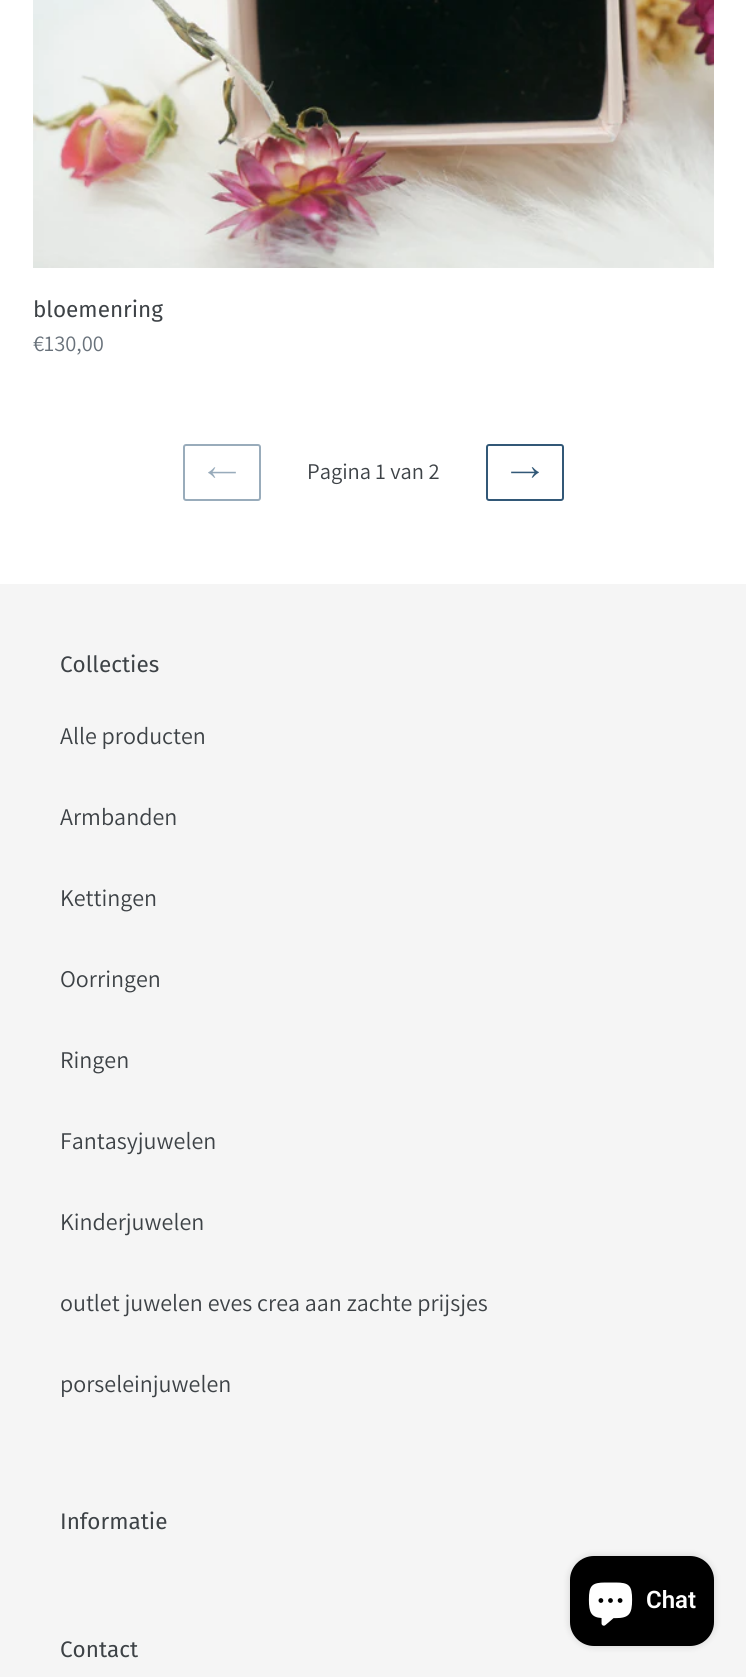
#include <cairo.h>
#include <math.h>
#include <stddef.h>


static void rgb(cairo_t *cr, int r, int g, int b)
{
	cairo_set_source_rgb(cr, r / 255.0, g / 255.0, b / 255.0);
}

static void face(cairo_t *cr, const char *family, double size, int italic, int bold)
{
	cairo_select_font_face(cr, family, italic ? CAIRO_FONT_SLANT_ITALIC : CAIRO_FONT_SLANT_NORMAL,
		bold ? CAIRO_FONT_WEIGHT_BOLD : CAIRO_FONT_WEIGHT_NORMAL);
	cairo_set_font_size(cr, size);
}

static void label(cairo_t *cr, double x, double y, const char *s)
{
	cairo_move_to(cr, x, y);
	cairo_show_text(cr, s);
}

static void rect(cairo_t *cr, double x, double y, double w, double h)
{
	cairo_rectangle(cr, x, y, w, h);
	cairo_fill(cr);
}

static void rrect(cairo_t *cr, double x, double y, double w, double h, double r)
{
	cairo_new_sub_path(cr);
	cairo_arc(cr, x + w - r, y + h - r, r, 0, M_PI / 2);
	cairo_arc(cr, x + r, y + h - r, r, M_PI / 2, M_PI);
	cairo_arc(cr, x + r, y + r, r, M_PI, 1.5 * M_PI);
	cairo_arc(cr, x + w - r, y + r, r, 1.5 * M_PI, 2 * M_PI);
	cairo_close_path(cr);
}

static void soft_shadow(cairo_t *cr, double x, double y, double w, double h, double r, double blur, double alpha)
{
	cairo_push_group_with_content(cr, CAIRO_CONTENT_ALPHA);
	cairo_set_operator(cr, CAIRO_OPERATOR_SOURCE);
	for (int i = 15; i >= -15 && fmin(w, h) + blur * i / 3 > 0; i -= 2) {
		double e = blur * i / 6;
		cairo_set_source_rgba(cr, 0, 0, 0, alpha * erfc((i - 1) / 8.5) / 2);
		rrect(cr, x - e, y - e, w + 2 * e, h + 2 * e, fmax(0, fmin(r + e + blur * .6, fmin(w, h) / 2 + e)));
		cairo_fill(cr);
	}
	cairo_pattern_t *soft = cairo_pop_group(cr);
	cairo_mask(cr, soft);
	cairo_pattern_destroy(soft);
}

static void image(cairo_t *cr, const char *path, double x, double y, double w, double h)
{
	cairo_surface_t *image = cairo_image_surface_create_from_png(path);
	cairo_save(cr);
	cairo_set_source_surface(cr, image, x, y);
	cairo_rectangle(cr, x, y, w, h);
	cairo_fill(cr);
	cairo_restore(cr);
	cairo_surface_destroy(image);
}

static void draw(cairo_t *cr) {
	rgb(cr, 255, 255, 255);
	cairo_paint(cr);
	image(cr, "image0.png", 33, 0, 681, 268);
	face(cr, "Fira Sans", 22.5, 0, 0);
	rgb(cr, 61, 66, 70);
	label(cr, 33, 317, "bloemenring");
	face(cr, "Assistant", 22.5, 0, 0);
	rgb(cr, 105, 114, 123);
	label(cr, 33, 351, "€130,00");
	rrect(cr, 184, 445, 76, 55, 2);
	rgb(cr, 153, 172, 187);
	cairo_stroke(cr);
	image(cr, "image1.png", 208, 467, 28, 11);
	rgb(cr, 61, 66, 70);
	label(cr, 307, 479, "Pagina 1 van 2");
	rrect(cr, 487, 445, 76, 55, 2);
	rgb(cr, 50, 88, 119);
	cairo_stroke(cr);
	image(cr, "image2.png", 511, 467, 28, 11);
	rgb(cr, 245, 245, 245);
	rect(cr, 0, 584, 746, 1093);
	face(cr, "Fira Sans", 22.5, 0, 0);
	rgb(cr, 61, 66, 70);
	label(cr, 60, 672, "Collecties");
	face(cr, "Assistant", 24, 0, 0);
	label(cr, 60, 744, "Alle producten");
	label(cr, 60, 825, "Armbanden");
	label(cr, 60, 906, "Kettingen");
	label(cr, 60, 987, "Oorringen");
	label(cr, 60, 1068, "Ringen");
	label(cr, 60, 1149, "Fantasyjuwelen");
	label(cr, 60, 1230, "Kinderjuwelen");
	label(cr, 60, 1311, "outlet juwelen eves crea aan zachte prijsjes");
	label(cr, 60, 1392, "porseleinjuwelen");
	face(cr, "Fira Sans", 22.5, 0, 0);
	label(cr, 60, 1529, "Informatie");
	label(cr, 60, 1657, "Contact");
	rgb(cr, 0, 0, 0);
	soft_shadow(cr, 570, 1556, 144, 90, 24, 4, 0.15);
	rgb(cr, 0, 0, 0);
	rrect(cr, 570, 1556, 144, 90, 24);
	cairo_fill(cr);
	image(cr, "image3.png", 588, 1582, 45, 44);
	face(cr, "Roboto SemiBold", 24, 0, 0);
	rgb(cr, 255, 255, 255);
	label(cr, 646, 1608, "Chat");
}

int main(void) {
	cairo_surface_t *surface = cairo_image_surface_create(CAIRO_FORMAT_RGB24, 746, 1677);
	cairo_t *cr = cairo_create(surface);
	cairo_font_options_t *options = cairo_font_options_create();
	cairo_font_options_set_hint_metrics(options, CAIRO_HINT_METRICS_OFF);
	cairo_font_options_set_hint_style(options, CAIRO_HINT_STYLE_NONE);
	cairo_set_font_options(cr, options);
	cairo_set_miter_limit(cr, 4);
	draw(cr);
	cairo_surface_write_to_png(surface, "render.png");
	cairo_font_options_destroy(options);
	cairo_destroy(cr);
	cairo_surface_destroy(surface);
	return 0;
}
